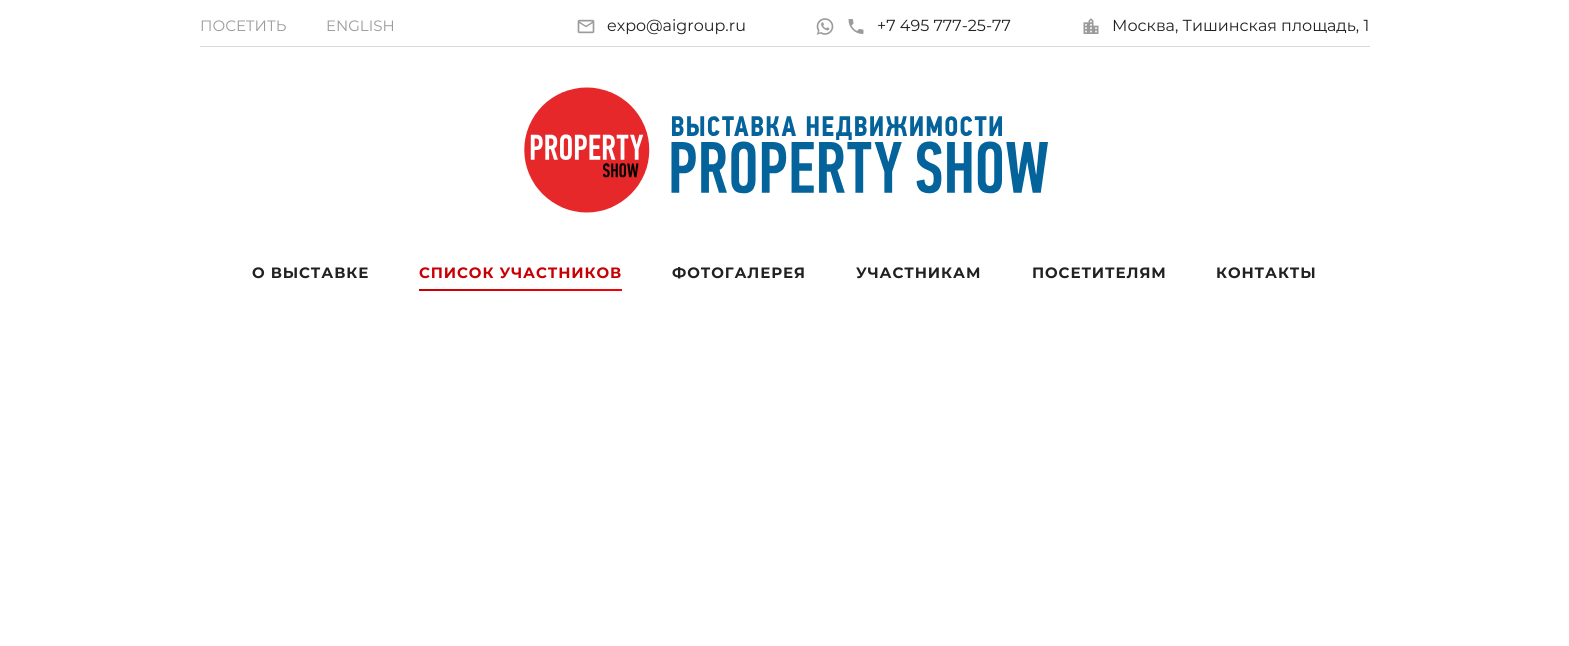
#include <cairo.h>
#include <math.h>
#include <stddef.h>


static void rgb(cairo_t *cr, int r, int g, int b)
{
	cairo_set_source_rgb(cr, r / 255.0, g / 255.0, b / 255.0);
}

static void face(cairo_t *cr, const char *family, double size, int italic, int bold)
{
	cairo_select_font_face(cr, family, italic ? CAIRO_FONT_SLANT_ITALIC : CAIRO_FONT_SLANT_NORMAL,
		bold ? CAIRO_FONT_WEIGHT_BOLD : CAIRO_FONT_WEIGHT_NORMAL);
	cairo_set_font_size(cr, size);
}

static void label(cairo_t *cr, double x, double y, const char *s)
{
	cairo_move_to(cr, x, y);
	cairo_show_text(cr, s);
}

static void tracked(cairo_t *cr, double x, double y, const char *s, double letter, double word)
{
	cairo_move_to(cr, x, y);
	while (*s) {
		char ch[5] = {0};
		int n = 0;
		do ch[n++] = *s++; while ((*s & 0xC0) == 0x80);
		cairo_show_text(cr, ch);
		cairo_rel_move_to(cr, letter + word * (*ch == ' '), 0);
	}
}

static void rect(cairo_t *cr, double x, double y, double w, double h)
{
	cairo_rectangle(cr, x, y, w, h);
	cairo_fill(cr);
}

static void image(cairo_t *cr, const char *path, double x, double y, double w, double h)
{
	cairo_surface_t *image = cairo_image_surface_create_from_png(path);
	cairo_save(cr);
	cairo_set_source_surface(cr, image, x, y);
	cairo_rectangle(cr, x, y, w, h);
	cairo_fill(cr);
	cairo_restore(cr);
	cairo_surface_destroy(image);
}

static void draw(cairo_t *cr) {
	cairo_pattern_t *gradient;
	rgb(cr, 255, 255, 255);
	cairo_paint(cr);
	face(cr, "Montserrat", 15, 0, 0);
	rgb(cr, 155, 155, 155);
	label(cr, 200, 31, "ПОСЕТИТЬ");
	label(cr, 326, 31, "ENGLISH");
	image(cr, "image0.png", 577, 19, 18, 15);
	face(cr, "Montserrat", 16, 0, 0);
	rgb(cr, 33, 33, 33);
	label(cr, 607, 31, "expo@aigroup.ru");
	image(cr, "image1.png", 816, 18, 18, 17);
	image(cr, "image2.png", 848, 19, 16, 15);
	label(cr, 877, 31, "+7 495 777-25-77");
	image(cr, "image3.png", 1083, 18, 16, 16);
	label(cr, 1112, 31, "Москва, Тишинская площадь, 1");
	rgb(cr, 217, 217, 217);
	rect(cr, 200, 46, 1170, 1);
	image(cr, "image4.png", 524, 87, 524, 126);
	face(cr, "Montserrat", 15, 0, 1);
	rgb(cr, 33, 33, 33);
	tracked(cr, 252, 278, "О ВЫСТАВКЕ", 0.9, 0);
	rgb(cr, 200, 0, 4);
	tracked(cr, 419, 278, "СПИСОК УЧАСТНИКОВ", 0.9, 0);
	gradient = cairo_pattern_create_linear(419, 290, 622, 290);
	cairo_pattern_add_color_stop_rgba(gradient, 0, 0.784, 0, 0.016, 1);
	cairo_pattern_add_color_stop_rgba(gradient, 1, 0.973, 0, 0.016, 1);
	cairo_set_source(cr, gradient);
	cairo_pattern_destroy(gradient);
	rect(cr, 419, 289, 203, 2);
	rgb(cr, 33, 33, 33);
	tracked(cr, 672, 278, "ФОТОГАЛЕРЕЯ", 0.9, 0);
	tracked(cr, 856, 278, "УЧАСТНИКАМ", 0.9, 0);
	tracked(cr, 1032, 278, "ПОСЕТИТЕЛЯМ", 0.9, 0);
	tracked(cr, 1216, 278, "КОНТАКТЫ", 0.9, 0);
}

int main(void) {
	cairo_surface_t *surface = cairo_image_surface_create(CAIRO_FORMAT_RGB24, 1569, 646);
	cairo_t *cr = cairo_create(surface);
	cairo_font_options_t *options = cairo_font_options_create();
	cairo_font_options_set_hint_metrics(options, CAIRO_HINT_METRICS_OFF);
	cairo_font_options_set_hint_style(options, CAIRO_HINT_STYLE_NONE);
	cairo_set_font_options(cr, options);
	cairo_set_miter_limit(cr, 4);
	draw(cr);
	cairo_surface_write_to_png(surface, "render.png");
	cairo_font_options_destroy(options);
	cairo_destroy(cr);
	cairo_surface_destroy(surface);
	return 0;
}
